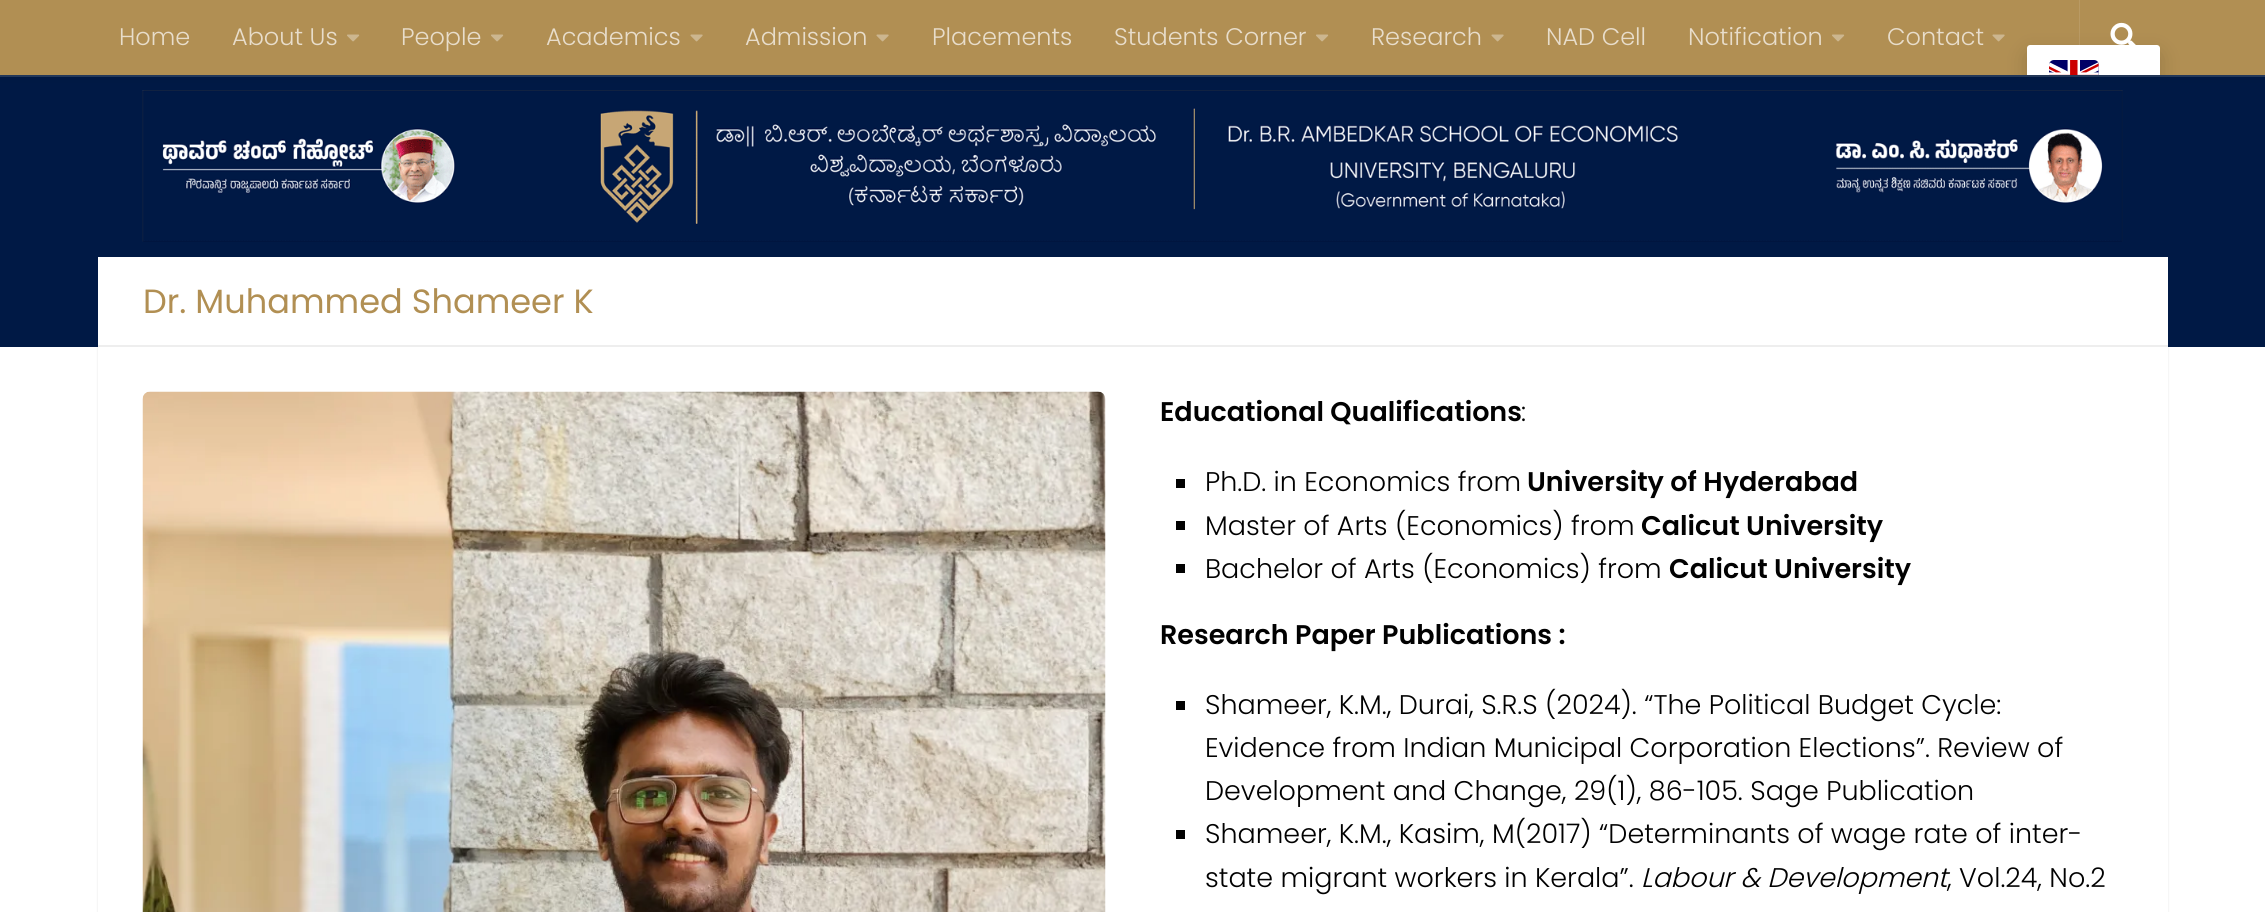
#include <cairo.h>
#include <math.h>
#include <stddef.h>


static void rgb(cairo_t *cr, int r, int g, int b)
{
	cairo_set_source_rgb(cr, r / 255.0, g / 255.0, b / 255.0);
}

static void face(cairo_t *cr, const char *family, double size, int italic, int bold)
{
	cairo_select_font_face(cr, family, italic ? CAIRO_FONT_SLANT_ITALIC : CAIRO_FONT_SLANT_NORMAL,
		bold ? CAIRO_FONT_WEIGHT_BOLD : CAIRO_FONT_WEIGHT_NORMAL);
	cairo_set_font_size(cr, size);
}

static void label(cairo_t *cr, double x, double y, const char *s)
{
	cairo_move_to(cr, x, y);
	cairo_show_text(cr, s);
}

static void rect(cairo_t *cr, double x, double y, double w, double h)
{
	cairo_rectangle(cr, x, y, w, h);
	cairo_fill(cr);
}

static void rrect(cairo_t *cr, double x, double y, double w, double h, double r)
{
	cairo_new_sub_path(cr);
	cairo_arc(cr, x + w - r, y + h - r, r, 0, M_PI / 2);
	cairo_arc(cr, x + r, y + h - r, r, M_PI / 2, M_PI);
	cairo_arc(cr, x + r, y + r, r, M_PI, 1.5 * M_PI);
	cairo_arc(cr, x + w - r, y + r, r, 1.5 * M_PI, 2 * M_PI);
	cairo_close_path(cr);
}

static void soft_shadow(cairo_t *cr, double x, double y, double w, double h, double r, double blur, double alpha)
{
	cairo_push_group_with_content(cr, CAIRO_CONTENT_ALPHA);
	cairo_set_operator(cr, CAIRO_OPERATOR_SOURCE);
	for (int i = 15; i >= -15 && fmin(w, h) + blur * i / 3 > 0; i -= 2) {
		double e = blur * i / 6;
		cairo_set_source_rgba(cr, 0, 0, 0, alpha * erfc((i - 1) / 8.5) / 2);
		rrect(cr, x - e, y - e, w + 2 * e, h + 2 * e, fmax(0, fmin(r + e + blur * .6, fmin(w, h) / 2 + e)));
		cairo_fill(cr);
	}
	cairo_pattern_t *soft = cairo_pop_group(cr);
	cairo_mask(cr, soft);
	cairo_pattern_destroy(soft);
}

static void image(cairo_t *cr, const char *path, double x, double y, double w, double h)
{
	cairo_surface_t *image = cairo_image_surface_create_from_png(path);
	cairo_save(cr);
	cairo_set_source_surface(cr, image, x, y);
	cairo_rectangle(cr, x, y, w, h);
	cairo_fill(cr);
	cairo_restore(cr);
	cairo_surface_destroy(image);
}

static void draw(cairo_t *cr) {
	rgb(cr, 255, 255, 255);
	cairo_paint(cr);
	rgb(cr, 0, 0, 0);
	soft_shadow(cr, 98, 258, 2070, 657, 0, 1, 0.1);
	rgb(cr, 0, 25, 69);
	rect(cr, 0, 77, 2265, 270);
	rgb(cr, 38, 60, 97);
	rect(cr, 0, 75, 2265, 2);
	rgb(cr, 0, 0, 0);
	soft_shadow(cr, 0, 0, 2265, 75, 0, 4, 0.2);
	rgb(cr, 177, 143, 83);
	rect(cr, 0, 0, 2265, 75);
	face(cr, "Poppins Light", 24, 0, 0);
	rgb(cr, 232, 221, 203);
	label(cr, 119, 45, "Home");
	label(cr, 232, 45, "About Us");
	image(cr, "image0.png", 347, 34, 13, 8);
	label(cr, 401, 45, "People");
	image(cr, "image0.png", 491, 34, 13, 8);
	label(cr, 546, 45, "Academics");
	image(cr, "image1.png", 690, 34, 13, 8);
	label(cr, 745, 45, "Admission");
	image(cr, "image1.png", 876, 34, 13, 8);
	label(cr, 932, 45, "Placements");
	label(cr, 1114, 45, "Students Corner");
	image(cr, "image0.png", 1316, 34, 13, 8);
	label(cr, 1371, 45, "Research");
	image(cr, "image1.png", 1491, 34, 13, 8);
	label(cr, 1546, 45, "NAD Cell");
	label(cr, 1688, 45, "Notification");
	image(cr, "image0.png", 1832, 34, 13, 8);
	label(cr, 1887, 45, "Contact");
	image(cr, "image1.png", 1992, 34, 13, 8);
	image(cr, "image4.png", 142, 90, 1981, 152);
	cairo_save(cr);
	cairo_rectangle(cr, 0, 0, 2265, 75);
	cairo_clip(cr);
	rgb(cr, 0, 0, 0);
	soft_shadow(cr, 2027, 53, 133, 67, 3, 11, 0.15);
	cairo_restore(cr);
	rgb(cr, 255, 255, 255);
	cairo_new_path(cr);
	cairo_move_to(cr, 2030, 45);
	cairo_line_to(cr, 2157, 45);
	cairo_curve_to(cr, 2158.5, 45, 2160, 46.5, 2160, 48);
	cairo_line_to(cr, 2160, 75);
	cairo_line_to(cr, 2027, 75);
	cairo_line_to(cr, 2027, 48);
	cairo_curve_to(cr, 2027, 46.5, 2028.5, 45, 2030, 45);
	cairo_close_path(cr);
	cairo_fill(cr);
	image(cr, "image2.png", 2049, 60, 50, 15);
	cairo_set_source_rgba(cr, 1, 1, 1, 0.1);
	rect(cr, 2079, 0, 1, 45);
	image(cr, "image3.png", 2110, 22, 26, 23);
	rgb(cr, 255, 255, 255);
	rect(cr, 98, 257, 2070, 655);
	rgb(cr, 238, 238, 238);
	rect(cr, 98, 345, 2070, 2);
	face(cr, "Poppins", 33.6, 0, 0);
	rgb(cr, 177, 143, 83);
	label(cr, 143, 313, "Dr. Muhammed Shameer K");
	image(cr, "image5.png", 142, 391, 964, 521);
	face(cr, "Poppins SemiBold", 27, 0, 0);
	rgb(cr, 1, 1, 1);
	label(cr, 1160, 421, "Educational Qualifications");
	face(cr, "Poppins Light", 27, 0, 0);
	label(cr, 1521, 421, ":");
	rect(cr, 1176, 479, 9, 9);
	label(cr, 1205, 491, "Ph.D. in Economics from");
	face(cr, "Poppins SemiBold", 27, 0, 0);
	label(cr, 1527, 491, "University of Hyderabad");
	rect(cr, 1176, 521, 9, 9);
	face(cr, "Poppins Light", 27, 0, 0);
	label(cr, 1205, 535, "Master of Arts (Economics) from");
	face(cr, "Poppins SemiBold", 27, 0, 0);
	label(cr, 1641, 535, "Calicut University");
	rect(cr, 1176, 564, 9, 9);
	face(cr, "Poppins Light", 27, 0, 0);
	label(cr, 1205, 578, "Bachelor of Arts (Economics) from");
	face(cr, "Poppins SemiBold", 27, 0, 0);
	label(cr, 1669, 578, "Calicut University");
	label(cr, 1160, 644, "Research Paper Publications :");
	rect(cr, 1176, 701, 9, 9);
	face(cr, "Poppins Light", 27, 0, 0);
	label(cr, 1205, 714, "Shameer, K.M., Durai, S.R.S (2024). “The Political Budget Cycle:");
	label(cr, 1205, 757, "Evidence from Indian Municipal Corporation Elections”. Review of");
	label(cr, 1205, 800, "Development and Change, 29(1), 86-105. Sage Publication");
	rect(cr, 1176, 830, 9, 9);
	label(cr, 1205, 843, "Shameer, K.M., Kasim, M(2017) “Determinants of wage rate of inter-");
	label(cr, 1205, 887, "state migrant workers in Kerala”.");
	face(cr, "Poppins Light", 27, 1, 0);
	label(cr, 1641, 887, "Labour & Development");
	face(cr, "Poppins Light", 27, 0, 0);
	label(cr, 1947, 887, ", Vol.24, No.2");
}

int main(void) {
	cairo_surface_t *surface = cairo_image_surface_create(CAIRO_FORMAT_RGB24, 2265, 912);
	cairo_t *cr = cairo_create(surface);
	cairo_font_options_t *options = cairo_font_options_create();
	cairo_font_options_set_hint_metrics(options, CAIRO_HINT_METRICS_OFF);
	cairo_font_options_set_hint_style(options, CAIRO_HINT_STYLE_NONE);
	cairo_set_font_options(cr, options);
	cairo_set_miter_limit(cr, 4);
	draw(cr);
	cairo_surface_write_to_png(surface, "render.png");
	cairo_font_options_destroy(options);
	cairo_destroy(cr);
	cairo_surface_destroy(surface);
	return 0;
}
